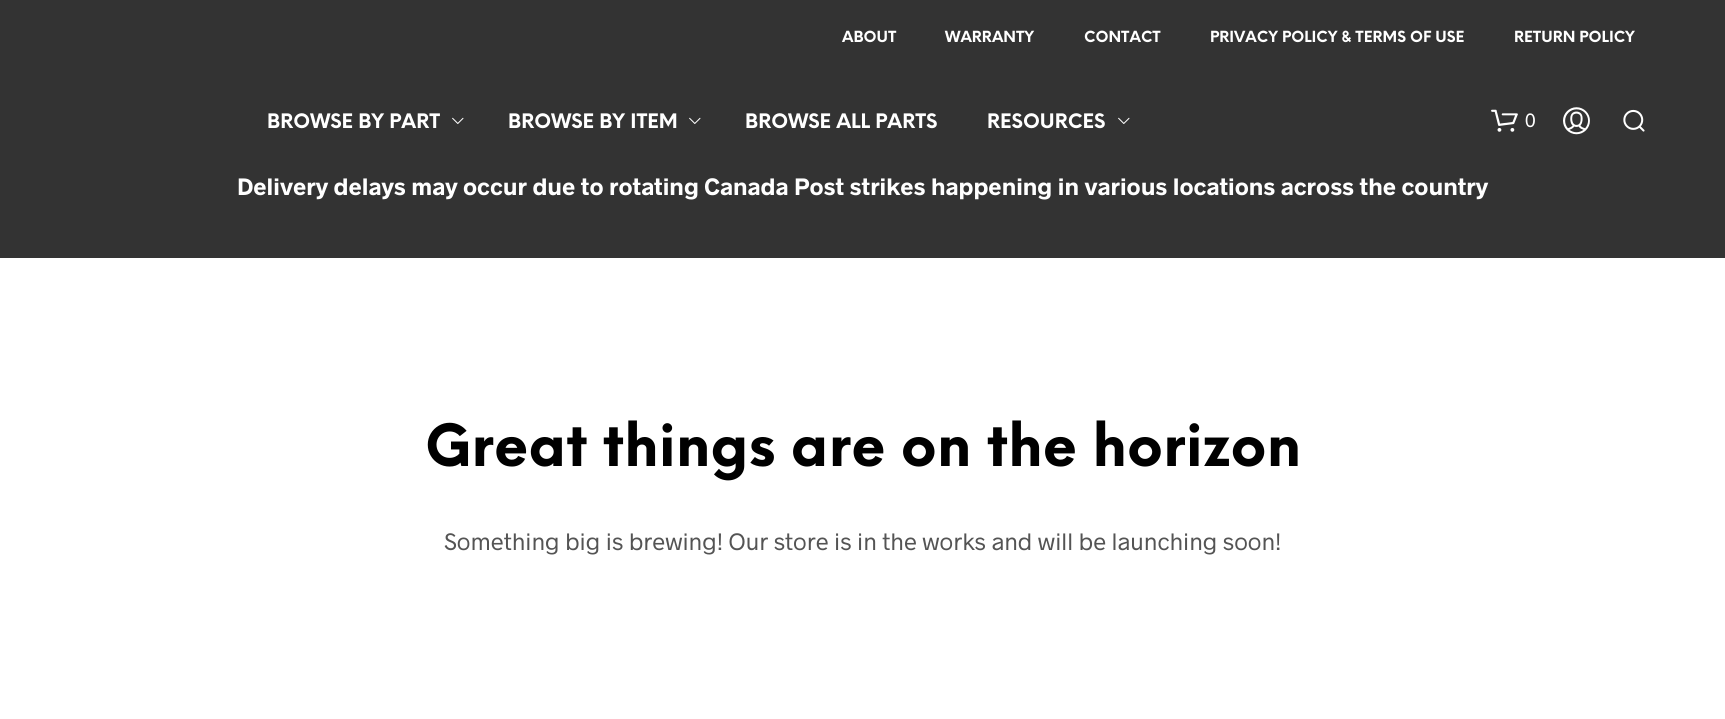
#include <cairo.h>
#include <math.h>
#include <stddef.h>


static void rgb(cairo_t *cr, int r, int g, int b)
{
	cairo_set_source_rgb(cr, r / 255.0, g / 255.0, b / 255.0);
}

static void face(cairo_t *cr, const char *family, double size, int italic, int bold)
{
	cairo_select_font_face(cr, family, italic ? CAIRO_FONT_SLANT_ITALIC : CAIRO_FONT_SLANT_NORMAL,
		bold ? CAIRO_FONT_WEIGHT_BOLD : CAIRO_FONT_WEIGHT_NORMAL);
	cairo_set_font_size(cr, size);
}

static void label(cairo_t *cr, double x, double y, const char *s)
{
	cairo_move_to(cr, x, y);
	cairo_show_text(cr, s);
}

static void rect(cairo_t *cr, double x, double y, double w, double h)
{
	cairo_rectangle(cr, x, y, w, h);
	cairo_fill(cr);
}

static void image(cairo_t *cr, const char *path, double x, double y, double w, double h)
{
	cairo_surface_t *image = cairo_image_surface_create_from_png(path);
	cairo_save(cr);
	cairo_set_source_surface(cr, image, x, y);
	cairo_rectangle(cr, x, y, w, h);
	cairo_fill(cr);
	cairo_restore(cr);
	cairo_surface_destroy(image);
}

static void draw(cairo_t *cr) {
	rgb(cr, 255, 255, 255);
	cairo_paint(cr);
	rgb(cr, 51, 51, 51);
	rect(cr, 0, 0, 1725, 258);
	face(cr, "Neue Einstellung", 15, 0, 1);
	rgb(cr, 255, 255, 255);
	label(cr, 842, 42, "ABOUT");
	label(cr, 945, 42, "WARRANTY");
	label(cr, 1084, 42, "CONTACT");
	label(cr, 1210, 42, "PRIVACY POLICY & TERMS OF USE");
	label(cr, 1514, 42, "RETURN POLICY");
	face(cr, "Neue Einstellung", 19.5, 0, 1);
	label(cr, 267, 128, "BROWSE BY PART");
	image(cr, "image0.png", 452, 117, 12, 7);
	label(cr, 508, 128, "BROWSE BY ITEM");
	image(cr, "image0.png", 689, 117, 12, 7);
	label(cr, 745, 128, "BROWSE ALL PARTS");
	label(cr, 987, 128, "RESOURCES");
	image(cr, "image0.png", 1118, 117, 12, 7);
	image(cr, "image1.png", 1491, 109, 27, 23);
	face(cr, "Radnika", 19.5, 0, 0);
	label(cr, 1525, 127, "0");
	image(cr, "image2.png", 1563, 107, 27, 28);
	image(cr, "image3.png", 1623, 109, 22, 23);
	face(cr, "Radnika", 24, 0, 1);
	label(cr, 237, 195, "Delivery delays may occur due to rotating Canada Post strikes happening in various locations across the country");
	face(cr, "Neue Einstellung", 56.9, 0, 1);
	rgb(cr, 0, 0, 0);
	label(cr, 425, 466, "Great things are on the horizon");
	face(cr, "Radnika", 24, 0, 0);
	rgb(cr, 84, 84, 84);
	label(cr, 444, 550, "Something big is brewing! Our store is in the works and will be launching soon!");
}

int main(void) {
	cairo_surface_t *surface = cairo_image_surface_create(CAIRO_FORMAT_RGB24, 1725, 719);
	cairo_t *cr = cairo_create(surface);
	cairo_font_options_t *options = cairo_font_options_create();
	cairo_font_options_set_hint_metrics(options, CAIRO_HINT_METRICS_OFF);
	cairo_font_options_set_hint_style(options, CAIRO_HINT_STYLE_NONE);
	cairo_set_font_options(cr, options);
	cairo_set_miter_limit(cr, 4);
	draw(cr);
	cairo_surface_write_to_png(surface, "render.png");
	cairo_font_options_destroy(options);
	cairo_destroy(cr);
	cairo_surface_destroy(surface);
	return 0;
}
